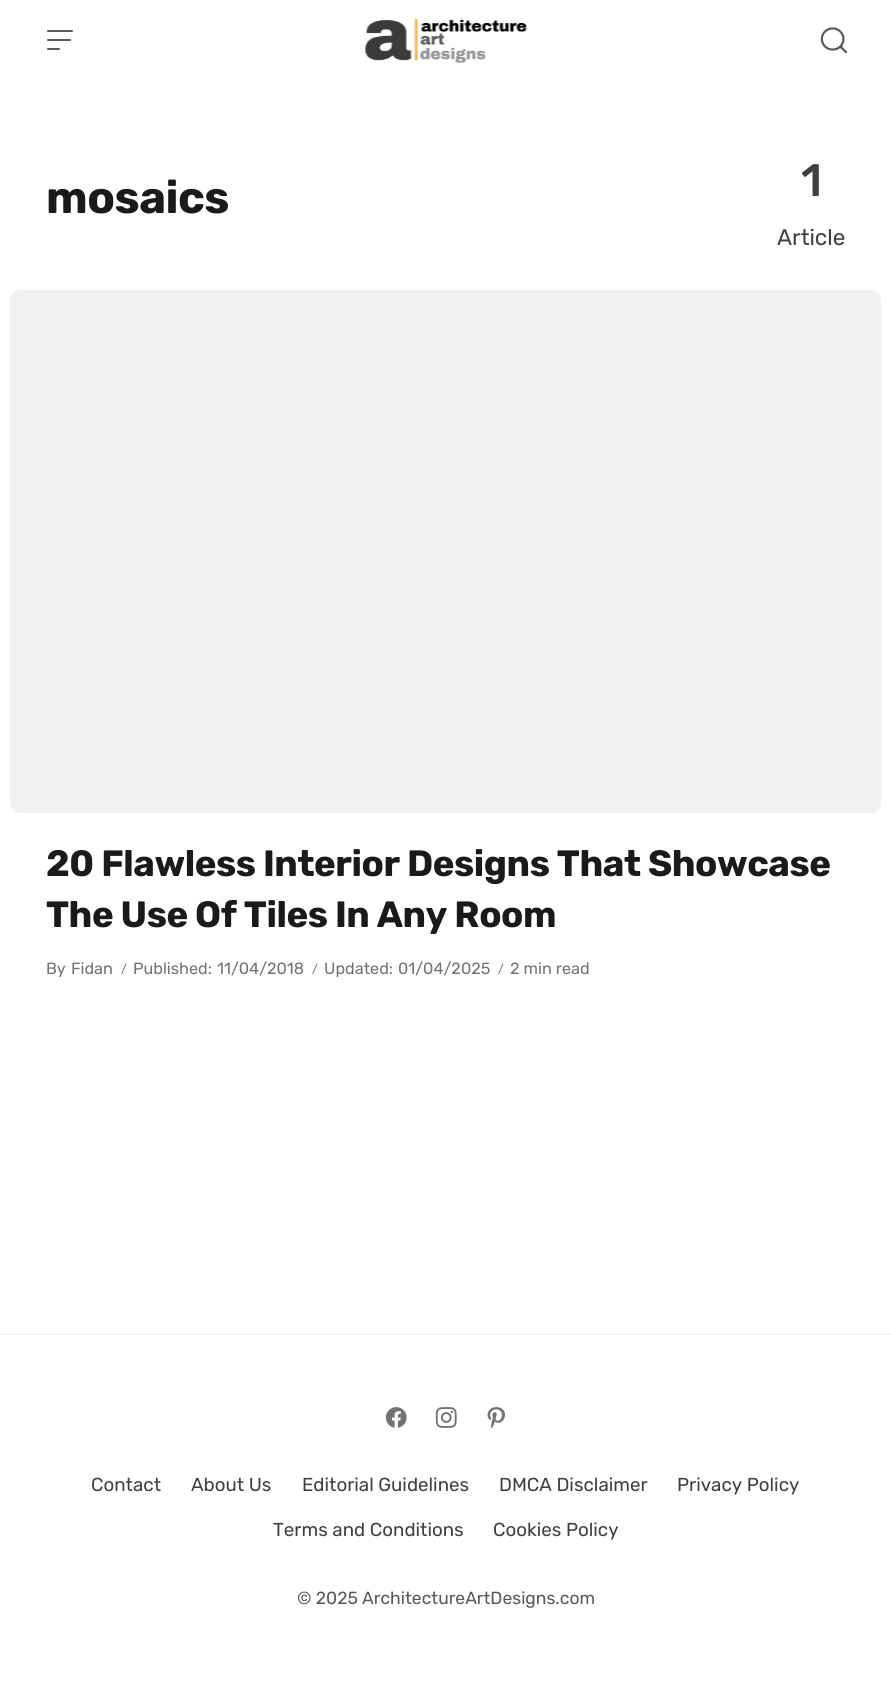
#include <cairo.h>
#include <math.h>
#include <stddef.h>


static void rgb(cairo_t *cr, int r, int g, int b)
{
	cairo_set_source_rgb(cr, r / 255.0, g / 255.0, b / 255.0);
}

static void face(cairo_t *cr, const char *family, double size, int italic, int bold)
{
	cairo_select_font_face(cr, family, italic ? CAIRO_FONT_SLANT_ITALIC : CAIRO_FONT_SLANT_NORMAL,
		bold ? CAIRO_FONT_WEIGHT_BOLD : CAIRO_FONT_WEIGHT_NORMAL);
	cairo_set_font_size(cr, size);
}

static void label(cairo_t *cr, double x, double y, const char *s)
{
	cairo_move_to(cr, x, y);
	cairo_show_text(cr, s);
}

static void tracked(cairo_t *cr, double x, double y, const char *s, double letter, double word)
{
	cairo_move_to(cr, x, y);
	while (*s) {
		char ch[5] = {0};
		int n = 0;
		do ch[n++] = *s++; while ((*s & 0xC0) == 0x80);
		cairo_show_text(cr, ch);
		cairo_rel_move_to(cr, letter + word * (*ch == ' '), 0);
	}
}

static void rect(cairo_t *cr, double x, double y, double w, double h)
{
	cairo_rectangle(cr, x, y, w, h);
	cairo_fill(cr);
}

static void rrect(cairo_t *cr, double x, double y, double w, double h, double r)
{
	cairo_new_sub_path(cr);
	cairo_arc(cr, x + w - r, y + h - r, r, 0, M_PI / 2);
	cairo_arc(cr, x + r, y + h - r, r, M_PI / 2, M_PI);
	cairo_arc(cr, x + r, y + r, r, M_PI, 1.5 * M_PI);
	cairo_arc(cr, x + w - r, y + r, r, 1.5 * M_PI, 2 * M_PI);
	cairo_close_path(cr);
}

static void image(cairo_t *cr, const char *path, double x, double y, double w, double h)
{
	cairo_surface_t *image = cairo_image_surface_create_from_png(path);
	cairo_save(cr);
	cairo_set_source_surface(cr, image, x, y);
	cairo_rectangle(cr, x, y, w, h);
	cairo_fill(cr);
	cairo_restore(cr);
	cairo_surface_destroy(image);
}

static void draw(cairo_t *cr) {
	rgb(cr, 255, 255, 255);
	cairo_paint(cr);
	rgb(cr, 89, 89, 89);
	rrect(cr, 47, 30, 26, 2, 1);
	cairo_fill(cr);
	rrect(cr, 47, 39, 24, 2, 1);
	cairo_fill(cr);
	rrect(cr, 47, 48, 13, 2, 1);
	cairo_fill(cr);
	image(cr, "image0.png", 364, 19, 163, 44);
	image(cr, "image1.png", 820, 27, 28, 27);
	face(cr, "Rubik", 45.5, 0, 1);
	rgb(cr, 26, 26, 26);
	tracked(cr, 46, 213, "mosaics", -0.5, 0);
	face(cr, "Rubik Medium", 45.5, 0, 0);
	rgb(cr, 64, 64, 64);
	label(cr, 801, 196, "1");
	face(cr, "Rubik", 22.5, 0, 0);
	label(cr, 777, 245, "Article");
	rgb(cr, 241, 241, 241);
	rrect(cr, 10, 290, 871, 523, 10);
	cairo_fill(cr);
	face(cr, "Rubik", 36.6, 0, 1);
	rgb(cr, 26, 26, 26);
	tracked(cr, 46, 876, "20 Flawless Interior Designs That Showcase", -0.45, 0);
	tracked(cr, 46, 927, "The Use Of Tiles In Any Room", -0.45, 0);
	face(cr, "Rubik", 16.25, 0, 0);
	rgb(cr, 115, 115, 115);
	label(cr, 46, 974, "By");
	label(cr, 71, 974, "Fidan");
	face(cr, "Rubik", 12, 0, 0);
	label(cr, 121, 973, "/");
	face(cr, "Rubik", 16.25, 0, 0);
	label(cr, 133, 974, "Published:");
	label(cr, 217, 974, "11/04/2018");
	face(cr, "Rubik", 12, 0, 0);
	label(cr, 312, 973, "/");
	face(cr, "Rubik", 16.25, 0, 0);
	label(cr, 324, 974, "Updated:");
	label(cr, 398, 974, "01/04/2025");
	face(cr, "Rubik", 12, 0, 0);
	label(cr, 498, 973, "/");
	face(cr, "Rubik", 16.25, 0, 0);
	label(cr, 510, 974, "2 min read");
	rgb(cr, 240, 240, 240);
	rect(cr, 0, 1334, 891, 1);
	image(cr, "image2.png", 385, 1407, 22, 21);
	image(cr, "image3.png", 435, 1407, 22, 21);
	image(cr, "image4.png", 487, 1407, 18, 22);
	face(cr, "Rubik", 18.75, 0, 0);
	rgb(cr, 64, 64, 64);
	label(cr, 91, 1491, "Contact");
	label(cr, 191, 1491, "About Us");
	label(cr, 302, 1491, "Editorial Guidelines");
	label(cr, 499, 1491, "DMCA Disclaimer");
	label(cr, 677, 1491, "Privacy Policy");
	label(cr, 273, 1536, "Terms and Conditions");
	label(cr, 493, 1536, "Cookies Policy");
	face(cr, "Rubik", 17.5, 0, 0);
	rgb(cr, 89, 89, 89);
	label(cr, 297, 1604, "© 2025 ArchitectureArtDesigns.com");
}

int main(void) {
	cairo_surface_t *surface = cairo_image_surface_create(CAIRO_FORMAT_RGB24, 891, 1683);
	cairo_t *cr = cairo_create(surface);
	cairo_font_options_t *options = cairo_font_options_create();
	cairo_font_options_set_hint_metrics(options, CAIRO_HINT_METRICS_OFF);
	cairo_font_options_set_hint_style(options, CAIRO_HINT_STYLE_NONE);
	cairo_set_font_options(cr, options);
	cairo_set_miter_limit(cr, 4);
	draw(cr);
	cairo_surface_write_to_png(surface, "render.png");
	cairo_font_options_destroy(options);
	cairo_destroy(cr);
	cairo_surface_destroy(surface);
	return 0;
}
